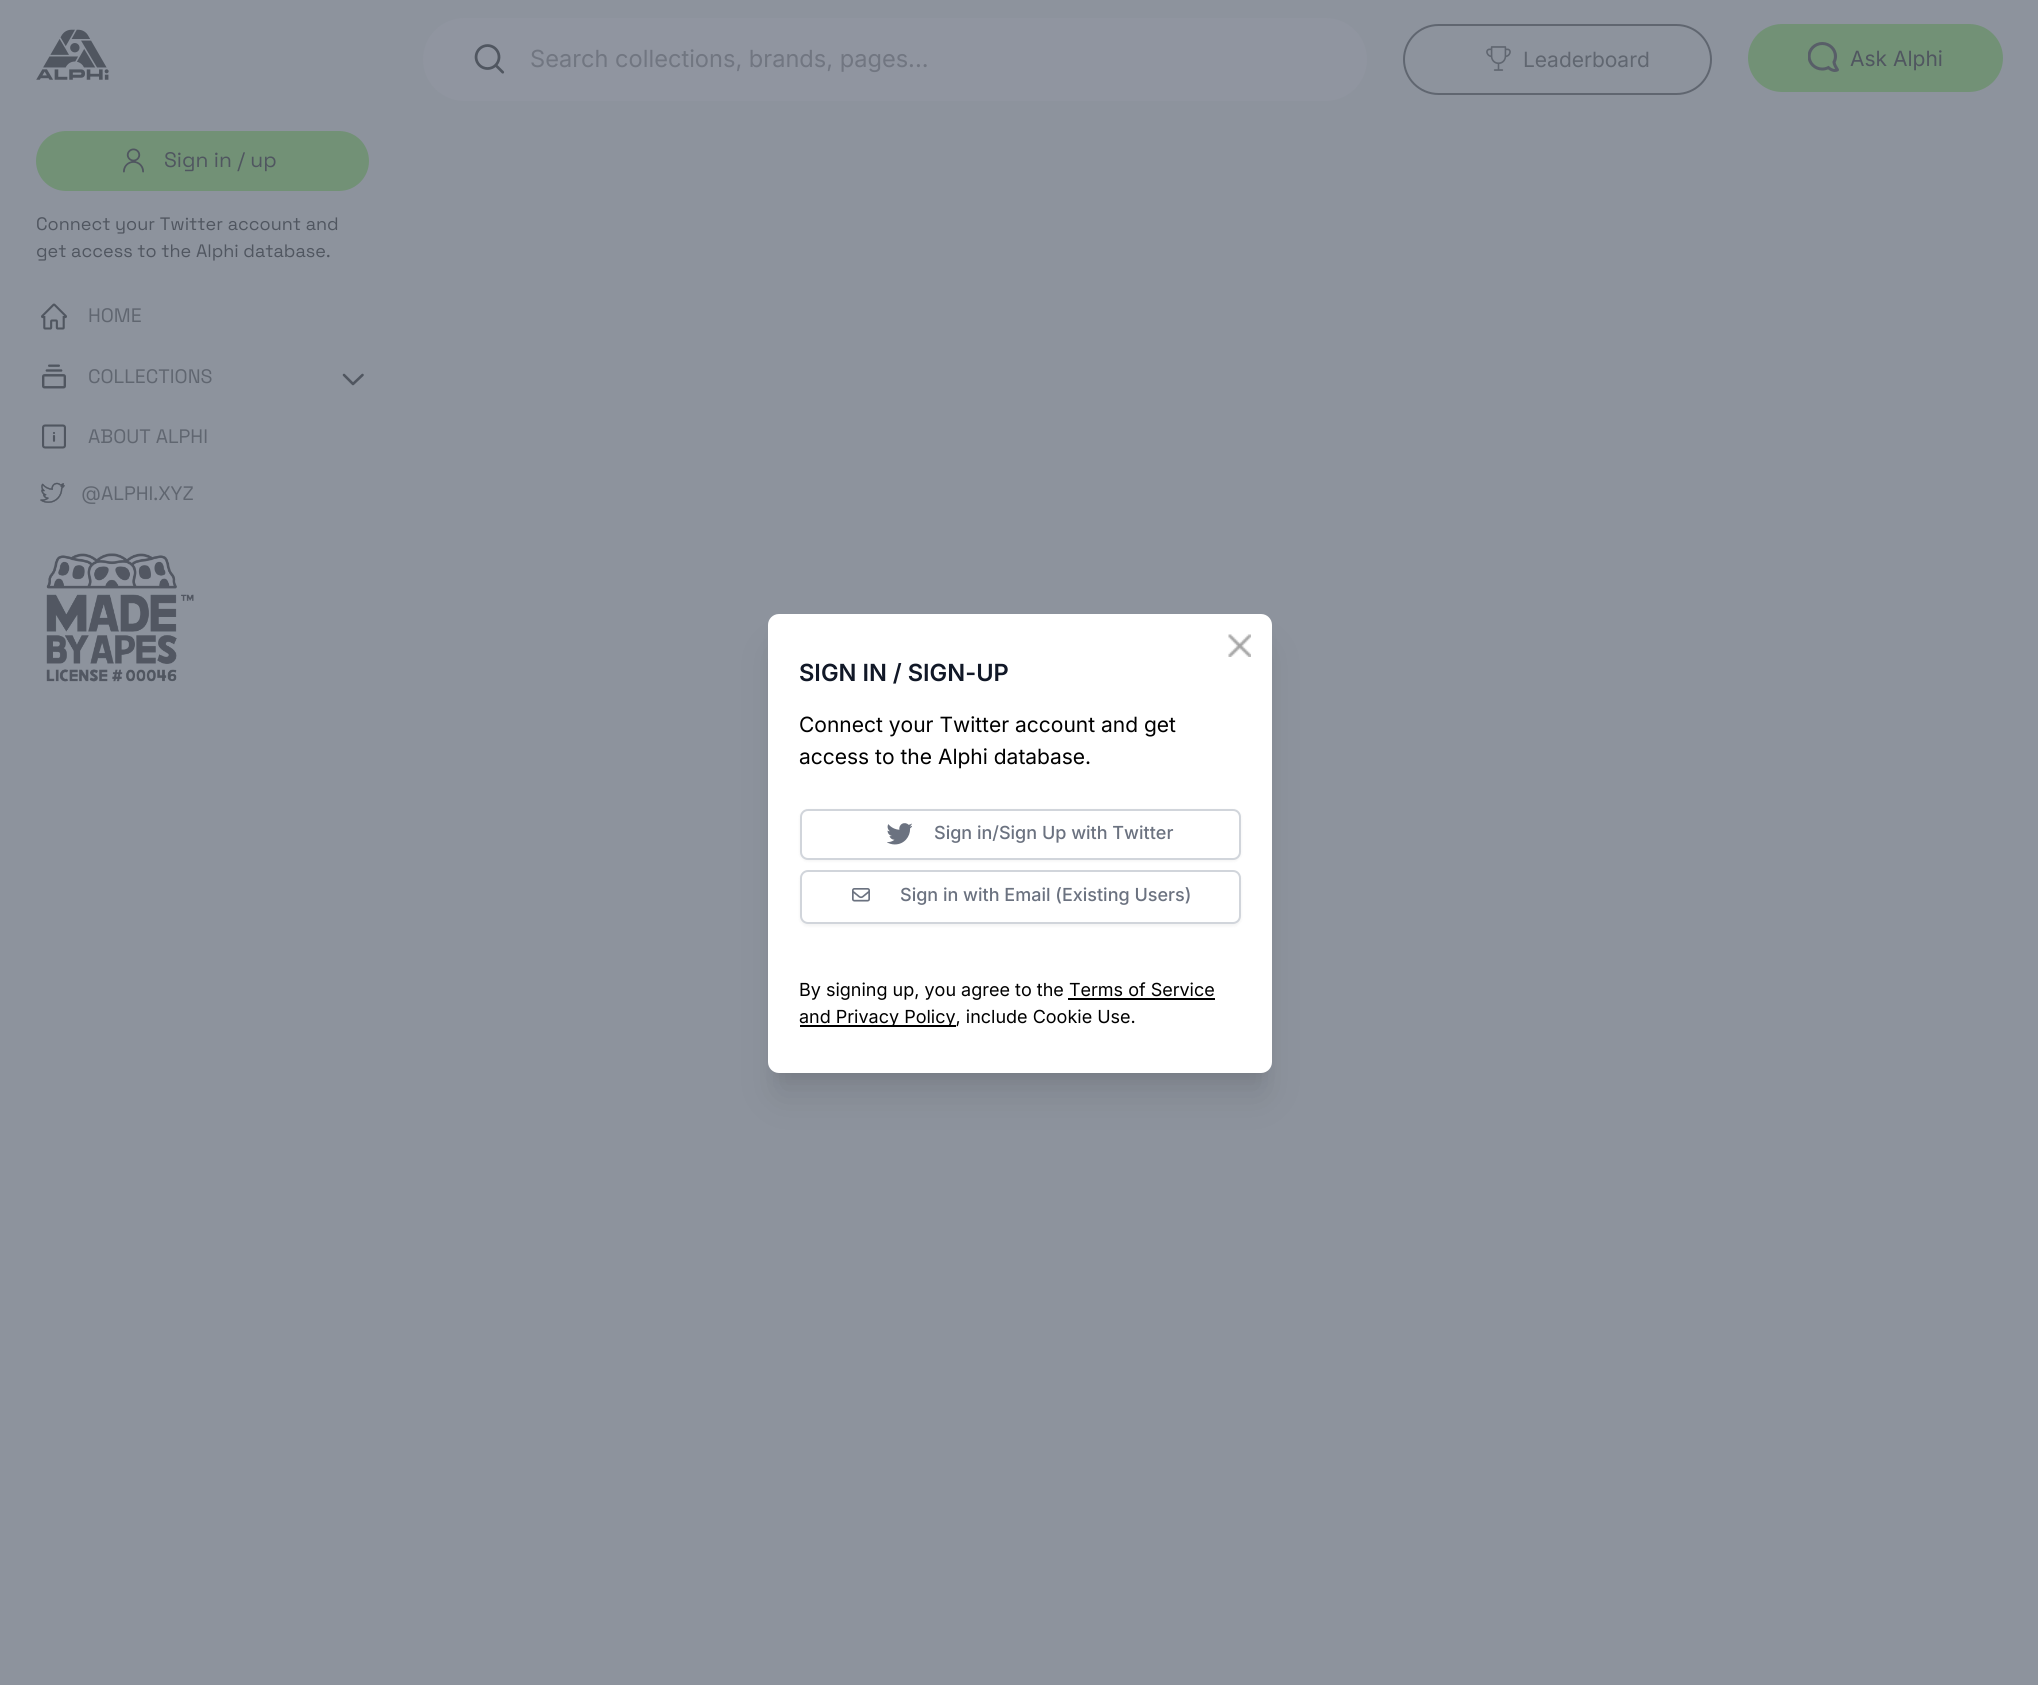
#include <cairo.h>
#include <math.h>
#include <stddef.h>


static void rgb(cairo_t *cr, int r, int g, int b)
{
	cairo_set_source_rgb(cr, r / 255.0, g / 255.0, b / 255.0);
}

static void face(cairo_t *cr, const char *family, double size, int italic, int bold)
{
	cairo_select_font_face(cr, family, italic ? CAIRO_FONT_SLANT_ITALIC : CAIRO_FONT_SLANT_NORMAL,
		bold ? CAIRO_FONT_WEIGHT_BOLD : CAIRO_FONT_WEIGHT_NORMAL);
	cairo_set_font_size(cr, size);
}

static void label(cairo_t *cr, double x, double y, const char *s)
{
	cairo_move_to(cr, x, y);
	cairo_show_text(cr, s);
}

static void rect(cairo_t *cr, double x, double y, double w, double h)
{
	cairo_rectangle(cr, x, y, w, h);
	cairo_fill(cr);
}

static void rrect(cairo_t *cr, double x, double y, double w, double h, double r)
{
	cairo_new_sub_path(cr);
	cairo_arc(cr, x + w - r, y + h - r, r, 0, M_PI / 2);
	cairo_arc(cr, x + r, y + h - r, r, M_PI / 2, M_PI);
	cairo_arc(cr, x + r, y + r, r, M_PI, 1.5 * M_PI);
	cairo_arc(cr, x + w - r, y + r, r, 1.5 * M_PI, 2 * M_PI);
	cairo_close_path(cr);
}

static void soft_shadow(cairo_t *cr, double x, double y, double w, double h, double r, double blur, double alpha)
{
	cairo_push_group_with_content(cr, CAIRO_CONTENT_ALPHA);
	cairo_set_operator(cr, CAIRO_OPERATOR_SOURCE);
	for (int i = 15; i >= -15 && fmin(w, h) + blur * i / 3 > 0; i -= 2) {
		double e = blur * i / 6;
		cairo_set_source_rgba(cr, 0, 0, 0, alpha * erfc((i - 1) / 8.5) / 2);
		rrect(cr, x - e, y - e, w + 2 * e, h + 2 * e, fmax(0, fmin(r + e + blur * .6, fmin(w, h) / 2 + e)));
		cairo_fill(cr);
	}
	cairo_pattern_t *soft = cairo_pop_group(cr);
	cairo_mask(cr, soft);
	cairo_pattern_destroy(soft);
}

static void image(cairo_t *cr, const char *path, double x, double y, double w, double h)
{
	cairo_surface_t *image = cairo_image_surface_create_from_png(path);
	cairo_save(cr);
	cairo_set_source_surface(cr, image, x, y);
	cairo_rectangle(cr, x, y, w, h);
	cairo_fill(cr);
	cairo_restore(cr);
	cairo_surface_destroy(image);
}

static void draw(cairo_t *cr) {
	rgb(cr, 141, 147, 157);
	cairo_paint(cr);
	image(cr, "image0.png", 36, 29, 73, 51);
	rgb(cr, 144, 149, 160);
	rrect(cr, 423, 18, 944, 83, 41.5);
	cairo_fill(cr);
	image(cr, "image1.png", 474, 44, 31, 30);
	face(cr, "Inter", 23.6, 0, 0);
	rgb(cr, 113, 118, 129);
	label(cr, 530, 67, "Search collections, brands, pages...");
	rrect(cr, 1404, 25, 307, 69, 34.5);
	rgb(cr, 96, 102, 112);
	cairo_stroke(cr);
	image(cr, "image2.png", 1486, 46, 25, 25);
	face(cr, "Inter", 21, 0, 0);
	label(cr, 1523, 67, "Leaderboard");
	rgb(cr, 114, 145, 118);
	rrect(cr, 1748, 24, 255, 68, 34);
	cairo_fill(cr);
	image(cr, "image3.png", 1808, 42, 31, 30);
	rgb(cr, 80, 86, 96);
	label(cr, 1850, 66, "Ask Alphi");
	rgb(cr, 114, 145, 118);
	rrect(cr, 36, 131, 333, 60, 30);
	cairo_fill(cr);
	image(cr, "image4.png", 123, 148, 21, 25);
	face(cr, "Space Grotesk", 21, 0, 0);
	rgb(cr, 80, 86, 96);
	label(cr, 164, 167, "Sign in / up");
	face(cr, "Space Grotesk", 18, 0, 0);
	label(cr, 36, 230, "Connect your Twitter account and");
	label(cr, 36, 257, "get access to the Alphi database.");
	image(cr, "image5.png", 41, 303, 26, 27);
	face(cr, "Space Grotesk", 19.5, 0, 0);
	rgb(cr, 96, 102, 112);
	label(cr, 88, 322, "HOME");
	image(cr, "image6.png", 42, 364, 24, 25);
	label(cr, 88, 383, "COLLECTIONS");
	cairo_new_path(cr);
	cairo_move_to(cr, 362.5, 375);
	cairo_line_to(cr, 353, 384);
	cairo_line_to(cr, 344, 375);
	rgb(cr, 80, 86, 96);
	cairo_set_line_width(cr, 2.6);
	cairo_set_line_cap(cr, CAIRO_LINE_CAP_ROUND);
	cairo_set_line_join(cr, CAIRO_LINE_JOIN_ROUND);
	cairo_stroke(cr);
	image(cr, "image7.png", 42, 424, 24, 25);
	rgb(cr, 96, 102, 112);
	label(cr, 88, 443, "ABOUT ALPHI");
	image(cr, "image8.png", 40, 482, 25, 21);
	label(cr, 81, 500, "@ALPHI.XYZ");
	image(cr, "image9.png", 46, 553, 148, 129);
	rgb(cr, 0, 0, 0);
	soft_shadow(cr, 777, 635, 486, 441, 1.5, 7.5, 0.1);
	soft_shadow(cr, 776, 651, 489, 444, 3, 19, 0.1);
	rgb(cr, 255, 255, 255);
	rrect(cr, 768, 614, 504, 459, 11);
	cairo_fill(cr);
	image(cr, "image10.png", 1228, 634, 23, 23);
	face(cr, "Inter SemiBold", 23.6, 0, 0);
	rgb(cr, 17, 24, 39);
	label(cr, 799, 681, "SIGN IN / SIGN-UP");
	face(cr, "Inter", 21, 0, 0);
	rgb(cr, 0, 0, 0);
	label(cr, 799, 732, "Connect your Twitter account and get");
	label(cr, 799, 764, "access to the Alphi database.");
	rgb(cr, 0, 0, 0);
	soft_shadow(cr, 800, 810, 441, 51, 8, 1.5, 0.05);
	rgb(cr, 255, 255, 255);
	rrect(cr, 801, 810, 439, 49, 7);
	cairo_fill_preserve(cr);
	rgb(cr, 209, 213, 219);
	cairo_set_line_width(cr, 2);
	cairo_set_line_cap(cr, CAIRO_LINE_CAP_BUTT);
	cairo_set_line_join(cr, CAIRO_LINE_JOIN_MITER);
	cairo_stroke(cr);
	image(cr, "image11.png", 887, 823, 25, 22);
	face(cr, "Inter Medium", 18, 0, 0);
	rgb(cr, 107, 114, 128);
	label(cr, 934, 839, "Sign in/Sign Up with Twitter");
	rgb(cr, 0, 0, 0);
	soft_shadow(cr, 800, 872, 441, 54, 8, 1.5, 0.05);
	rgb(cr, 255, 255, 255);
	rrect(cr, 801, 871, 439, 52, 7);
	cairo_fill_preserve(cr);
	rgb(cr, 209, 213, 219);
	cairo_stroke(cr);
	image(cr, "image12.png", 852, 888, 18, 14);
	rgb(cr, 107, 114, 128);
	label(cr, 900, 901, "Sign in with Email (Existing Users)");
	face(cr, "Inter", 18, 0, 0);
	rgb(cr, 0, 0, 0);
	label(cr, 799, 996, "By signing up, you agree to the Terms of Service");
	rect(cr, 800, 1025, 156, 2);
	label(cr, 799, 1023, "and Privacy Policy, include Cookie Use.");
	rect(cr, 1068, 998, 147, 2);
}

int main(void) {
	cairo_surface_t *surface = cairo_image_surface_create(CAIRO_FORMAT_RGB24, 2038, 1685);
	cairo_t *cr = cairo_create(surface);
	cairo_font_options_t *options = cairo_font_options_create();
	cairo_font_options_set_hint_metrics(options, CAIRO_HINT_METRICS_OFF);
	cairo_font_options_set_hint_style(options, CAIRO_HINT_STYLE_NONE);
	cairo_set_font_options(cr, options);
	cairo_set_miter_limit(cr, 4);
	draw(cr);
	cairo_surface_write_to_png(surface, "render.png");
	cairo_font_options_destroy(options);
	cairo_destroy(cr);
	cairo_surface_destroy(surface);
	return 0;
}
